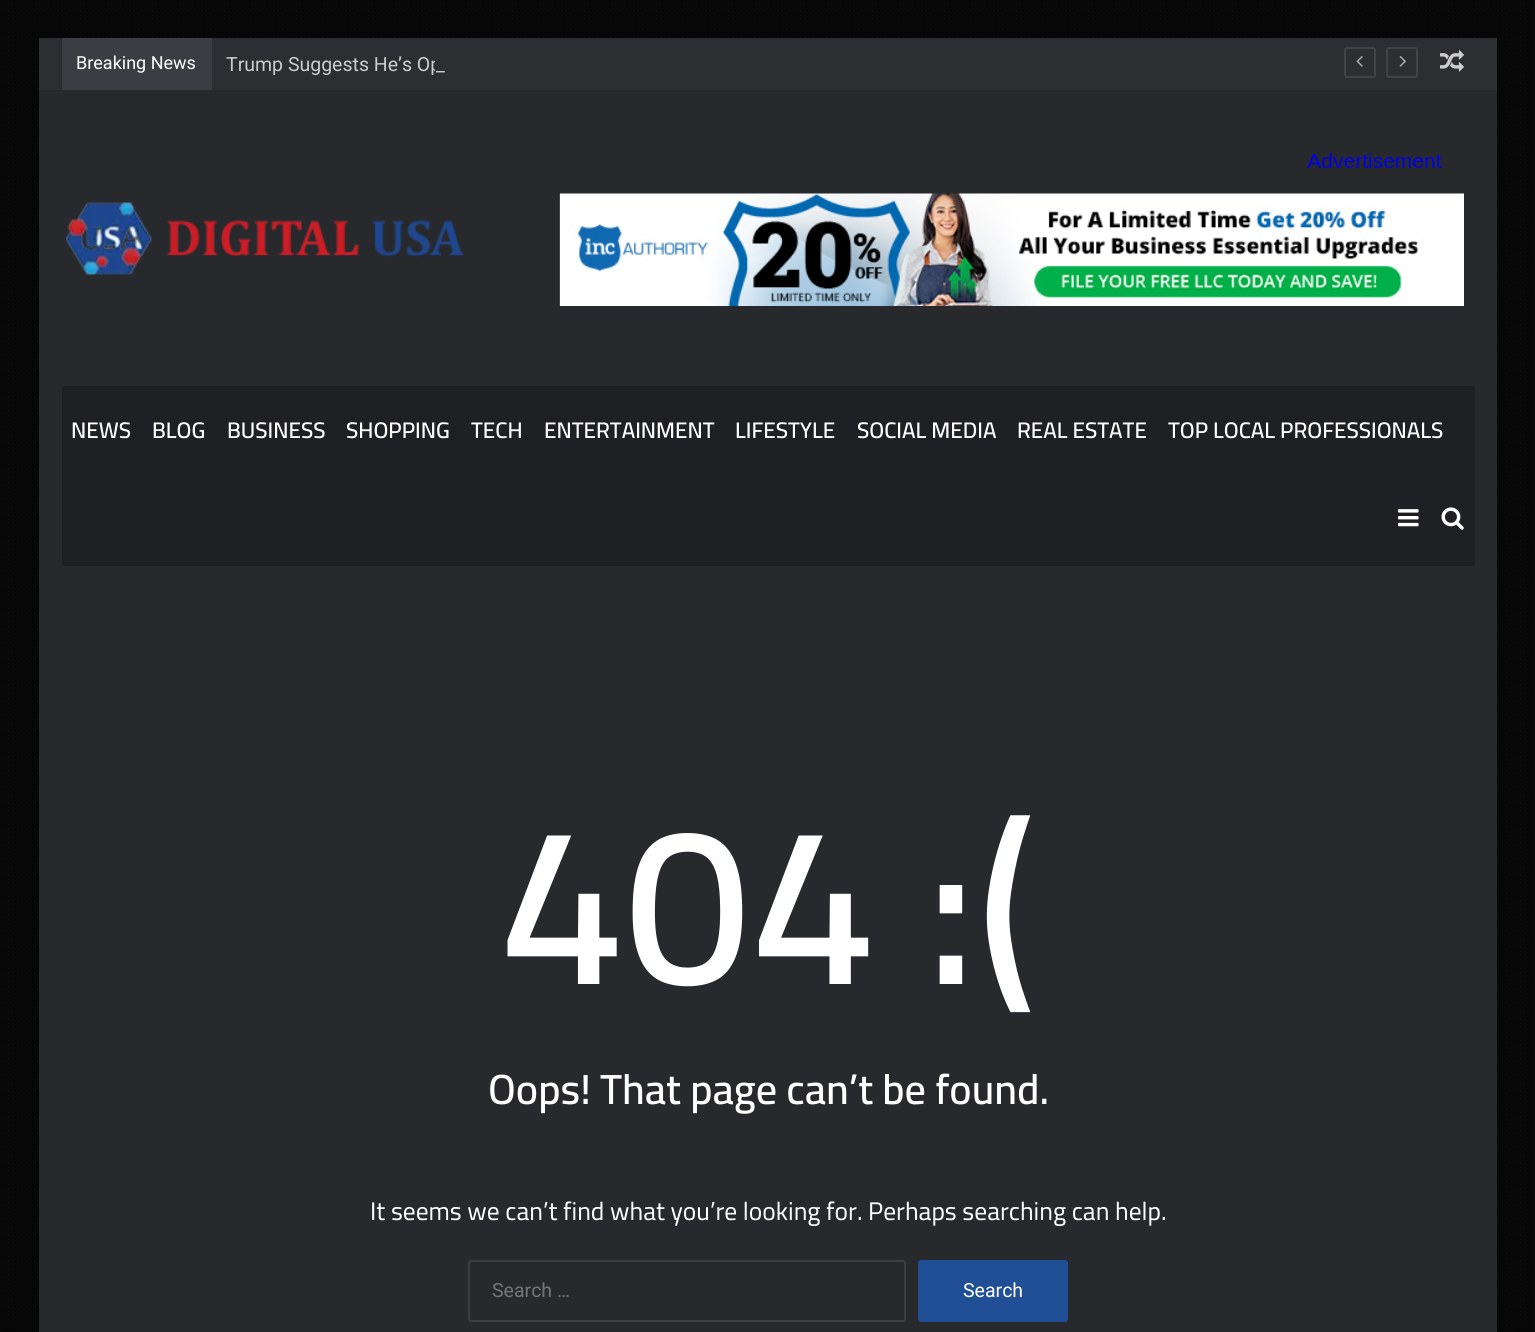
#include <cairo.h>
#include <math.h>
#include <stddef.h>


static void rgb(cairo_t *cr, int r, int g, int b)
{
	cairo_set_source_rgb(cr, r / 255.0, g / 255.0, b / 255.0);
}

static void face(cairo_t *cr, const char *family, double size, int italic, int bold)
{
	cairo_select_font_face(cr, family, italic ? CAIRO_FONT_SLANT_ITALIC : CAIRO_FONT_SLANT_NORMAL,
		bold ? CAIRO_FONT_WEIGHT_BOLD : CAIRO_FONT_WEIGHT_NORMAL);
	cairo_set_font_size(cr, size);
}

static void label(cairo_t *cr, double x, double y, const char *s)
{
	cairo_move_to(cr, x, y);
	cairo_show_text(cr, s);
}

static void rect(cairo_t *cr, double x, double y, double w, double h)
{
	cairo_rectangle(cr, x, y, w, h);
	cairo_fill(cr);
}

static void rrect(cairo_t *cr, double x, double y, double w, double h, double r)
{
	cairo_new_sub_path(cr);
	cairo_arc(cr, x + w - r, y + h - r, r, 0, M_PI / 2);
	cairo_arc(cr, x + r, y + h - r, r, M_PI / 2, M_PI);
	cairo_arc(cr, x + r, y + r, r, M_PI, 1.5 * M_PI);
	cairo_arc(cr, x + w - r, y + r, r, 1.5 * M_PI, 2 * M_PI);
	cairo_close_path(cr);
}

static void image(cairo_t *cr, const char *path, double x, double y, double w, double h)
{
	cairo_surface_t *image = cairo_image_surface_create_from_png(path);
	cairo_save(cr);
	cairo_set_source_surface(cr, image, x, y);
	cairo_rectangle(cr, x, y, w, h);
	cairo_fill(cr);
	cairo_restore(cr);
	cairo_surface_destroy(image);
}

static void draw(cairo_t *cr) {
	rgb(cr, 10, 10, 11);
	cairo_paint(cr);
	image(cr, "image0.png", 0, 0, 1534, 1332);
	rgb(cr, 39, 41, 45);
	rect(cr, 39, 92, 1458, 1240);
	rgb(cr, 44, 46, 50);
	rect(cr, 39, 38, 1458, 52);
	rgb(cr, 40, 41, 45);
	rect(cr, 39, 90, 1458, 2);
	rgb(cr, 59, 61, 66);
	rect(cr, 62, 38, 150, 52);
	face(cr, "Roboto", 18, 0, 0);
	rgb(cr, 255, 255, 255);
	label(cr, 76, 69, "Breaking News");
	face(cr, "Roboto", 19.5, 0, 0);
	rgb(cr, 204, 204, 204);
	label(cr, 226, 71, "Trump Suggests He’s Op");
	rgb(cr, 44, 46, 50);
	rect(cr, 435, 60, 6, 12);
	rgb(cr, 204, 204, 204);
	label(cr, 436, 71, "_");
	rrect(cr, 1345, 48, 30, 29, 2);
	rgb(cr, 65, 67, 71);
	cairo_stroke(cr);
	image(cr, "image1.png", 1356, 56, 7, 11);
	rrect(cr, 1387, 48, 30, 29, 2);
	cairo_stroke(cr);
	image(cr, "image2.png", 1399, 56, 7, 11);
	image(cr, "image3.png", 1440, 50, 24, 22);
	image(cr, "image4.png", 65, 202, 399, 73);
	image(cr, "image5.png", 559, 153, 905, 153);
	rgb(cr, 31, 32, 36);
	rect(cr, 62, 386, 1413, 180);
	face(cr, "Cairo SemiBold", 22.5, 0, 0);
	rgb(cr, 255, 255, 255);
	label(cr, 71, 438, "NEWS");
	label(cr, 152, 438, "BLOG");
	label(cr, 227, 438, "BUSINESS");
	label(cr, 346, 438, "SHOPPING");
	label(cr, 471, 438, "TECH");
	label(cr, 544, 438, "ENTERTAINMENT");
	label(cr, 735, 438, "LIFESTYLE");
	label(cr, 857, 438, "SOCIAL MEDIA");
	label(cr, 1017, 438, "REAL ESTATE");
	label(cr, 1168, 438, "TOP LOCAL PROFESSIONALS");
	image(cr, "image6.png", 1398, 509, 21, 18);
	image(cr, "image7.png", 1441, 507, 23, 23);
	face(cr, "Cairo SemiBold", 225, 0, 0);
	label(cr, 499, 984, "404 :(");
	face(cr, "Cairo SemiBold", 42, 0, 0);
	label(cr, 488, 1104, "Oops! That page can’t be found.");
	face(cr, "Cairo", 25.5, 0, 0);
	label(cr, 370, 1220, "It seems we can’t find what you’re looking for. Perhaps searching can help.");
	rrect(cr, 469, 1261, 436, 60, 2);
	rgb(cr, 61, 62, 66);
	cairo_stroke(cr);
	face(cr, "Roboto", 19.5, 0, 0);
	rgb(cr, 117, 117, 117);
	label(cr, 492, 1297, "Search …");
	rgb(cr, 33, 79, 150);
	rrect(cr, 918, 1260, 150, 62, 3);
	cairo_fill(cr);
	rgb(cr, 255, 255, 255);
	label(cr, 963, 1297, "Search");
}

int main(void) {
	cairo_surface_t *surface = cairo_image_surface_create(CAIRO_FORMAT_RGB24, 1535, 1332);
	cairo_t *cr = cairo_create(surface);
	cairo_font_options_t *options = cairo_font_options_create();
	cairo_font_options_set_hint_metrics(options, CAIRO_HINT_METRICS_OFF);
	cairo_font_options_set_hint_style(options, CAIRO_HINT_STYLE_NONE);
	cairo_set_font_options(cr, options);
	cairo_set_miter_limit(cr, 4);
	draw(cr);
	cairo_surface_write_to_png(surface, "render.png");
	cairo_font_options_destroy(options);
	cairo_destroy(cr);
	cairo_surface_destroy(surface);
	return 0;
}
